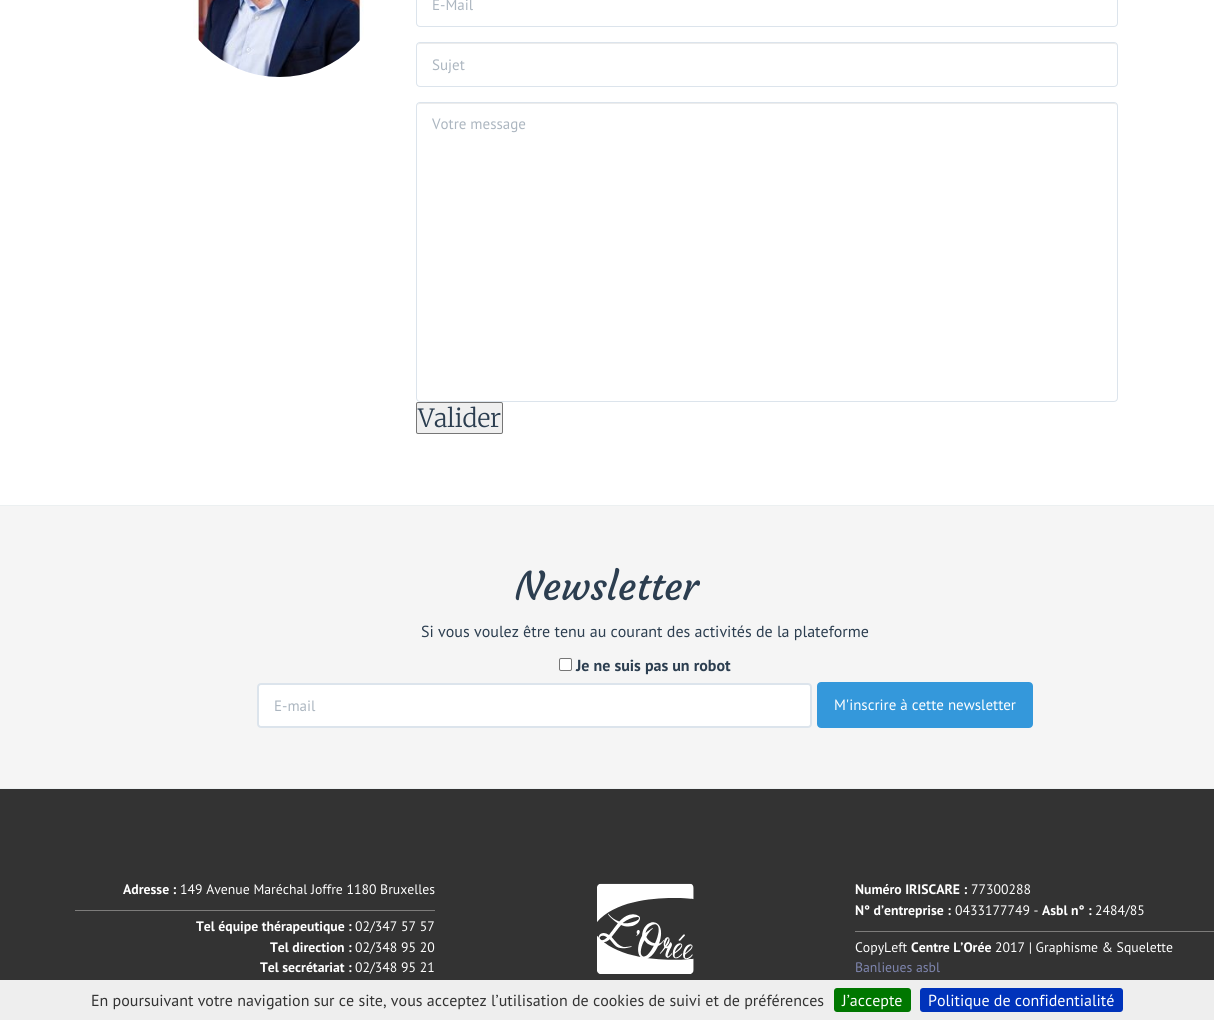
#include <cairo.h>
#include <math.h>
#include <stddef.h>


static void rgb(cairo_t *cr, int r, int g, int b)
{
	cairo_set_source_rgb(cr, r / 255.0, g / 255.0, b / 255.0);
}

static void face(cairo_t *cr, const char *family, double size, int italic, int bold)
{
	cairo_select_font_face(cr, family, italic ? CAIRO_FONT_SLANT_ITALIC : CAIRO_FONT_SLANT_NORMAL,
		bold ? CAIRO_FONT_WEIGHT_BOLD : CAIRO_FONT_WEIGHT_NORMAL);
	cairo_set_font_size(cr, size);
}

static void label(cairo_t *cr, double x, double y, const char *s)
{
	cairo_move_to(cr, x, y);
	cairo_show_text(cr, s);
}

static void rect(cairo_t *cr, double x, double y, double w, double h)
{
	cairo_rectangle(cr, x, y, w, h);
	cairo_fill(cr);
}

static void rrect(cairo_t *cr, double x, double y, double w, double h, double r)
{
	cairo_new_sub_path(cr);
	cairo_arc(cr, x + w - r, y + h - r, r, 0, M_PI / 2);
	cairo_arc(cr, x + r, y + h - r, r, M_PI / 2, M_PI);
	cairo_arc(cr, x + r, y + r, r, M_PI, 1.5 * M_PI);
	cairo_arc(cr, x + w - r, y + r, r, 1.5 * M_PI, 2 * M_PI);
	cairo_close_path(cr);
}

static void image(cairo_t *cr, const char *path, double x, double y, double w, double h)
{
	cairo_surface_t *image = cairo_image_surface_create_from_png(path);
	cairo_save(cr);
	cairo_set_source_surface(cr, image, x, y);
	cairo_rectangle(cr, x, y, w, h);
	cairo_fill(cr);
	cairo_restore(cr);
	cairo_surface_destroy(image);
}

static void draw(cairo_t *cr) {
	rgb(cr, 245, 245, 245);
	cairo_paint(cr);
	rgb(cr, 255, 255, 255);
	rect(cr, 0, 0, 1214, 505);
	rgb(cr, 236, 240, 241);
	rect(cr, 0, 505, 1214, 1);
	image(cr, "image0.png", 193, 0, 171, 77);
	rrect(cr, 416.5, -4.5, 701, 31, 3.5);
	rgb(cr, 220, 228, 236);
	cairo_set_line_width(cr, 1);
	cairo_stroke(cr);
	face(cr, "PT Sans", 15, 0, 0);
	rgb(cr, 172, 182, 192);
	label(cr, 432, 10, "E-Mail");
	rgb(cr, 236, 236, 236);
	cairo_new_path(cr);
	cairo_move_to(cr, 420, 44);
	cairo_line_to(cr, 1114, 44);
	cairo_curve_to(cr, 1116, 44, 1117, 45, 1117, 47);
	cairo_curve_to(cr, 1117, 45, 1116, 43, 1114, 43);
	cairo_line_to(cr, 420, 43);
	cairo_curve_to(cr, 418, 43, 417, 45, 417, 47);
	cairo_curve_to(cr, 417, 45, 418, 44, 420, 44);
	cairo_close_path(cr);
	cairo_fill(cr);
	rrect(cr, 416.5, 42.5, 701, 44, 3.5);
	rgb(cr, 220, 228, 236);
	cairo_stroke(cr);
	rgb(cr, 172, 182, 192);
	label(cr, 432, 70, "Sujet");
	rgb(cr, 236, 236, 236);
	cairo_new_path(cr);
	cairo_move_to(cr, 420, 104);
	cairo_line_to(cr, 1114, 104);
	cairo_curve_to(cr, 1116, 104, 1117, 105, 1117, 107);
	cairo_curve_to(cr, 1117, 105, 1116, 103, 1114, 103);
	cairo_line_to(cr, 420, 103);
	cairo_curve_to(cr, 418, 103, 417, 105, 417, 107);
	cairo_curve_to(cr, 417, 105, 418, 104, 420, 104);
	cairo_close_path(cr);
	cairo_fill(cr);
	rrect(cr, 416.5, 102.5, 701, 299, 3.5);
	rgb(cr, 220, 228, 236);
	cairo_stroke(cr);
	rgb(cr, 172, 182, 192);
	label(cr, 432, 129, "Votre message");
	rgb(cr, 239, 239, 239);
	rrect(cr, 416.5, 402.5, 86, 31, 1.5);
	cairo_fill_preserve(cr);
	rgb(cr, 118, 118, 118);
	cairo_stroke(cr);
	face(cr, "Merriweather Light", 25, 0, 0);
	rgb(cr, 44, 62, 80);
	label(cr, 418, 427, "Valider");
	rgb(cr, 236, 240, 241);
	rect(cr, 0, 788, 1214, 1);
	face(cr, "Courgette", 39, 0, 0);
	rgb(cr, 44, 62, 80);
	label(cr, 515, 600, "Newsletter");
	face(cr, "PT Sans", 16, 0, 0);
	label(cr, 421, 637, "Si vous voulez être tenu au courant des activités de la plateforme");
	rgb(cr, 255, 255, 255);
	rrect(cr, 559.5, 658.5, 12, 12, 1.5);
	cairo_fill_preserve(cr);
	rgb(cr, 118, 118, 118);
	cairo_stroke(cr);
	face(cr, "PT Sans", 16, 0, 1);
	rgb(cr, 44, 62, 80);
	label(cr, 576, 671, "Je ne suis pas un robot");
	rgb(cr, 255, 255, 255);
	rrect(cr, 258, 684, 553, 43, 3);
	cairo_fill_preserve(cr);
	rgb(cr, 220, 228, 236);
	cairo_set_line_width(cr, 2);
	cairo_stroke(cr);
	face(cr, "PT Sans", 15, 0, 0);
	rgb(cr, 172, 182, 192);
	label(cr, 274, 711, "E-mail");
	rgb(cr, 52, 152, 219);
	rrect(cr, 818, 683, 214, 44, 3);
	cairo_fill_preserve(cr);
	cairo_stroke(cr);
	rgb(cr, 255, 255, 255);
	label(cr, 834, 710, "M'inscrire à cette newsletter");
	rgb(cr, 51, 51, 51);
	rect(cr, 0, 789, 1214, 191);
	face(cr, "PT Sans", 13.75, 0, 1);
	rgb(cr, 255, 255, 255);
	label(cr, 123, 894, "Adresse :");
	face(cr, "PT Sans", 13.75, 0, 0);
	label(cr, 180, 894, "149 Avenue Maréchal Joffre 1180 Bruxelles");
	rgb(cr, 125, 124, 123);
	rect(cr, 75, 910, 360, 1);
	face(cr, "PT Sans", 13.75, 0, 1);
	rgb(cr, 255, 255, 255);
	label(cr, 196, 931, "Tel équipe thérapeutique :");
	face(cr, "PT Sans", 13.75, 0, 0);
	label(cr, 355, 931, "02/347 57 57");
	face(cr, "PT Sans", 13.75, 0, 1);
	label(cr, 270, 952, "Tel direction :");
	face(cr, "PT Sans", 13.75, 0, 0);
	label(cr, 355, 952, "02/348 95 20");
	face(cr, "PT Sans", 13.75, 0, 1);
	label(cr, 260, 972, "Tel secrétariat :");
	face(cr, "PT Sans", 13.75, 0, 0);
	label(cr, 355, 972, "02/348 95 21");
	image(cr, "image1.png", 597, 883, 97, 91);
	face(cr, "PT Sans", 13.75, 0, 1);
	label(cr, 855, 894, "Numéro IRISCARE :");
	face(cr, "PT Sans", 13.75, 0, 0);
	label(cr, 971, 894, "77300288");
	face(cr, "PT Sans", 13.75, 0, 1);
	label(cr, 855, 915, "N° d’entreprise :");
	face(cr, "PT Sans", 13.75, 0, 0);
	label(cr, 955, 915, "0433177749 -");
	face(cr, "PT Sans", 13.75, 0, 1);
	label(cr, 1042, 915, "Asbl n° :");
	face(cr, "PT Sans", 13.75, 0, 0);
	label(cr, 1095, 915, "2484/85");
	rgb(cr, 125, 124, 123);
	rect(cr, 855, 931, 359, 1);
	rgb(cr, 255, 255, 255);
	label(cr, 855, 952, "CopyLeft");
	face(cr, "PT Sans", 13.75, 0, 1);
	label(cr, 911, 952, "Centre L’Orée");
	face(cr, "PT Sans", 13.75, 0, 0);
	label(cr, 995, 952, "2017 | Graphisme & Squelette");
	rgb(cr, 126, 133, 174);
	label(cr, 855, 972, "Banlieues asbl");
	rgb(cr, 238, 238, 238);
	rect(cr, 0, 980, 1214, 40);
	face(cr, "PT Sans", 16, 0, 0);
	rgb(cr, 51, 51, 51);
	label(cr, 91, 1006, "En poursuivant votre navigation sur ce site, vous acceptez l’utilisation de cookies de suivi et de préférences");
	rgb(cr, 0, 119, 0);
	rrect(cr, 834, 988, 77, 24, 3);
	cairo_fill(cr);
	rgb(cr, 255, 255, 255);
	label(cr, 842, 1006, "J’accepte");
	rgb(cr, 0, 51, 187);
	rrect(cr, 920, 988, 203, 24, 3);
	cairo_fill(cr);
	rgb(cr, 255, 255, 255);
	label(cr, 928, 1006, "Politique de confidentialité");
}

int main(void) {
	cairo_surface_t *surface = cairo_image_surface_create(CAIRO_FORMAT_RGB24, 1214, 1020);
	cairo_t *cr = cairo_create(surface);
	cairo_font_options_t *options = cairo_font_options_create();
	cairo_font_options_set_hint_metrics(options, CAIRO_HINT_METRICS_OFF);
	cairo_font_options_set_hint_style(options, CAIRO_HINT_STYLE_NONE);
	cairo_set_font_options(cr, options);
	cairo_set_miter_limit(cr, 4);
	draw(cr);
	cairo_surface_write_to_png(surface, "render.png");
	cairo_font_options_destroy(options);
	cairo_destroy(cr);
	cairo_surface_destroy(surface);
	return 0;
}
